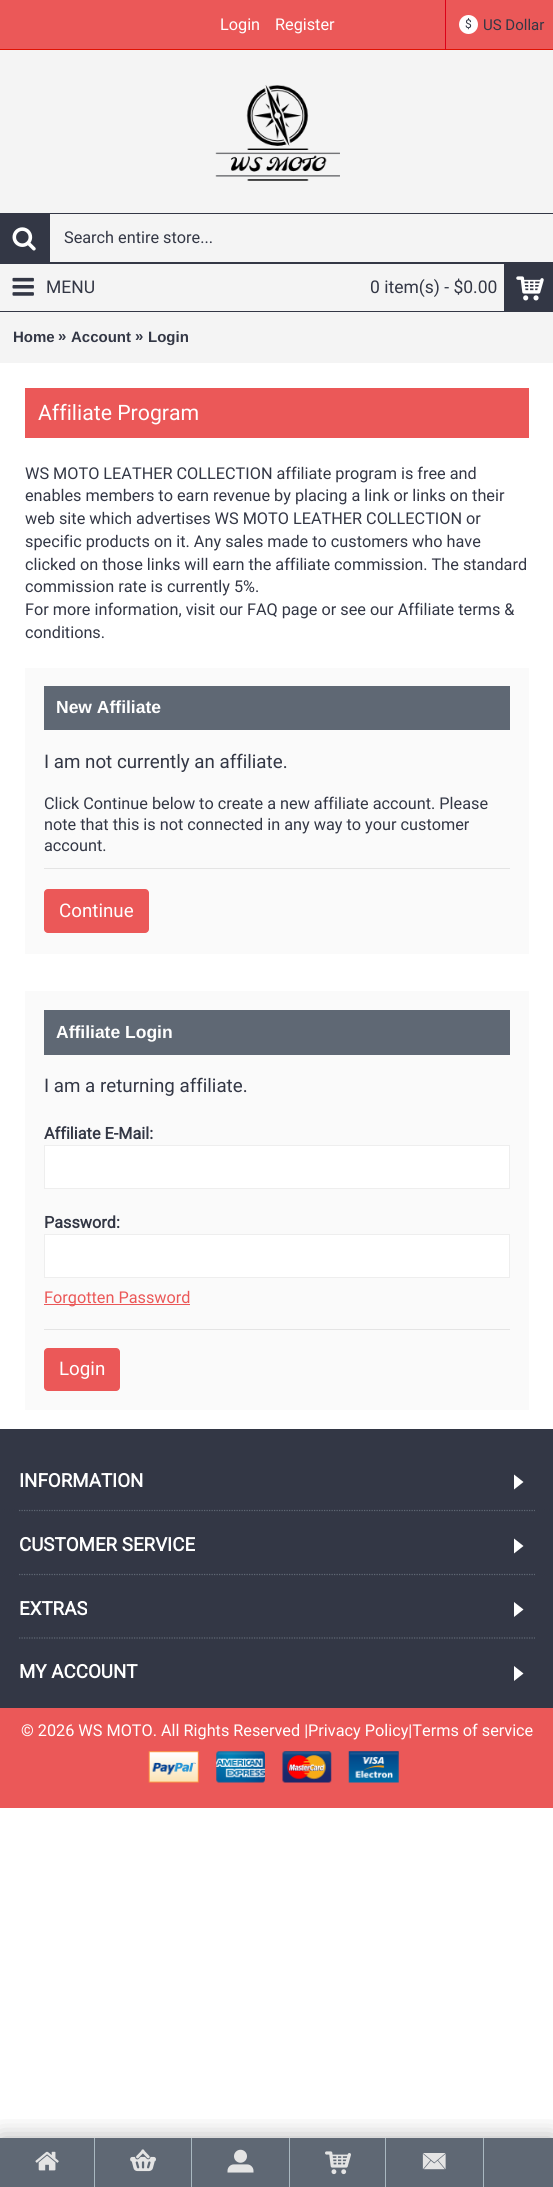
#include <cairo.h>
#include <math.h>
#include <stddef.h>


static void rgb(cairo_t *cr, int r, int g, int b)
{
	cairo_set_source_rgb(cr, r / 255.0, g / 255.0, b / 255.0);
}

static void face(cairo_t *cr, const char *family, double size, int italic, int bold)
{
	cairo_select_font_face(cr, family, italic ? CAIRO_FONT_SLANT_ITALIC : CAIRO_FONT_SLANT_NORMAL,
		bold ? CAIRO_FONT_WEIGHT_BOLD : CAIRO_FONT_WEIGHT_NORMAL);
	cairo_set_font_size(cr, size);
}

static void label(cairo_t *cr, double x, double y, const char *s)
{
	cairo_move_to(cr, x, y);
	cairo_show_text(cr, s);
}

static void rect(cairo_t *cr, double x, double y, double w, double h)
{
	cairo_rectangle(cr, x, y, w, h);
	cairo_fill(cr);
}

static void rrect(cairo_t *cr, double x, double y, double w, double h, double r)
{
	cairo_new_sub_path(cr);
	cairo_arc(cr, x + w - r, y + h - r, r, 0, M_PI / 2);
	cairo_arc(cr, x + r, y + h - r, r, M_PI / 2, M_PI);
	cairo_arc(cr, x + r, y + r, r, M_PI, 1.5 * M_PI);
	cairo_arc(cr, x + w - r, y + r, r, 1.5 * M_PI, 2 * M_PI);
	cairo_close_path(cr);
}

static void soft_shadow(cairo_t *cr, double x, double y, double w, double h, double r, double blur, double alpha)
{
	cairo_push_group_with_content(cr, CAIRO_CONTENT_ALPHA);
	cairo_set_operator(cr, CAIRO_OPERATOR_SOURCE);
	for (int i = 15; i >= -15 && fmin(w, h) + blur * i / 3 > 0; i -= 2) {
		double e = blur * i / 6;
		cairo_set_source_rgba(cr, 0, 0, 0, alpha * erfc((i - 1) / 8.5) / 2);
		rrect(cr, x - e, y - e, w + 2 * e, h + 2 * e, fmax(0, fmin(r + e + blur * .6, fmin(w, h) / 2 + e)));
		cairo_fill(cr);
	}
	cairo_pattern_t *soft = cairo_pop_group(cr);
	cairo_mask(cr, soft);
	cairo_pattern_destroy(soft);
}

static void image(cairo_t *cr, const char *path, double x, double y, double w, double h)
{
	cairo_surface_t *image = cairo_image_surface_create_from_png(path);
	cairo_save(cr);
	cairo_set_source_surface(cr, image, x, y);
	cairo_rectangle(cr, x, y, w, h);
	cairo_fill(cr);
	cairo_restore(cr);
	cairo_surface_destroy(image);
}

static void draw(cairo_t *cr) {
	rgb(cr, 255, 255, 255);
	cairo_paint(cr);
	rgb(cr, 235, 88, 88);
	rect(cr, 0, 0, 553, 49);
	rgb(cr, 224, 18, 3);
	rect(cr, 0, 49, 553, 1);
	face(cr, "Roboto", 16.25, 0, 0);
	rgb(cr, 255, 255, 255);
	label(cr, 220, 30, "Login");
	label(cr, 275, 30, "Register");
	rgb(cr, 221, 0, 23);
	rect(cr, 445, 0, 1, 50);
	rgb(cr, 255, 255, 255);
	cairo_new_path(cr);
	cairo_arc(cr, 468.5, 24.5, 9.5, 0, 2 * M_PI);
	cairo_fill(cr);
	face(cr, "Roboto", 12, 0, 0);
	rgb(cr, 51, 55, 69);
	label(cr, 465, 28, "$");
	face(cr, "Roboto", 15, 0, 0);
	label(cr, 483, 30, "US Dollar");
	rgb(cr, 95, 104, 116);
	rect(cr, 0, 2138, 553, 49);
	cairo_save(cr);
	cairo_rectangle(cr, 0, 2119, 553, 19);
	cairo_clip(cr);
	rgb(cr, 0, 0, 0);
	soft_shadow(cr, 0, 2138, 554, 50, 0, 12.5, 0.3);
	cairo_restore(cr);
	rgb(cr, 169, 184, 192);
	rect(cr, 94, 2138, 1, 49);
	image(cr, "image0.png", 35, 2151, 24, 20);
	rect(cr, 191, 2138, 1, 49);
	image(cr, "image1.png", 130, 2149, 26, 23);
	rect(cr, 289, 2138, 1, 49);
	image(cr, "image2.png", 227, 2149, 27, 24);
	rect(cr, 385, 2138, 1, 49);
	image(cr, "image3.png", 325, 2151, 26, 24);
	rect(cr, 483, 2138, 1, 49);
	image(cr, "image4.png", 422, 2153, 24, 17);
	rgb(cr, 244, 244, 244);
	rect(cr, 0, 50, 553, 313);
	image(cr, "image5.png", 215, 85, 125, 96);
	cairo_rectangle(cr, 0.5, 213.5, 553, 49);
	rgb(cr, 51, 55, 69);
	cairo_set_line_width(cr, 1);
	cairo_stroke(cr);
	rect(cr, 1, 214, 49, 48);
	image(cr, "image6.png", 12, 227, 24, 24);
	face(cr, "Roboto", 16.25, 0, 0);
	label(cr, 64, 243, "Search entire store...");
	rect(cr, 0, 263, 553, 1);
	rect(cr, 0, 311, 553, 1);
	face(cr, "Roboto", 17.5, 0, 0);
	label(cr, 370, 293, "0 item(s) - $0.00");
	rect(cr, 504, 264, 49, 47);
	image(cr, "image7.png", 516, 276, 28, 25);
	image(cr, "image8.png", 12, 277, 22, 19);
	label(cr, 46, 293, "MENU");
	face(cr, "Liberation Sans", 15, 0, 1);
	label(cr, 13, 342, "Home");
	label(cr, 58, 341, "»");
	label(cr, 71, 342, "Account");
	label(cr, 135, 341, "»");
	label(cr, 148, 342, "Login");
	rgb(cr, 235, 88, 88);
	rect(cr, 25, 388, 504, 50);
	face(cr, "Roboto", 21.25, 0, 0);
	rgb(cr, 255, 255, 255);
	label(cr, 38, 420, "Affiliate Program");
	face(cr, "Roboto", 16.25, 0, 0);
	rgb(cr, 51, 55, 69);
	label(cr, 25, 479, "WS MOTO LEATHER COLLECTION affiliate program is free and");
	label(cr, 25, 501, "enables members to earn revenue by placing a link or links on their");
	label(cr, 25, 524, "web site which advertises WS MOTO LEATHER COLLECTION or");
	label(cr, 25, 547, "specific products on it. Any sales made to customers who have");
	label(cr, 25, 570, "clicked on those links will earn the affiliate commission. The standard");
	label(cr, 25, 592, "commission rate is currently 5%.");
	label(cr, 25, 615, "For more information, visit our FAQ page or see our Affiliate terms &");
	label(cr, 25, 638, "conditions.");
	rgb(cr, 250, 250, 250);
	rect(cr, 25, 668, 504, 286);
	rgb(cr, 95, 104, 116);
	rect(cr, 44, 686, 466, 44);
	face(cr, "Liberation Sans", 17.5, 0, 1);
	rgb(cr, 255, 255, 255);
	label(cr, 56, 713, "New Affiliate");
	face(cr, "Roboto", 18.75, 0, 0);
	rgb(cr, 51, 55, 69);
	label(cr, 44, 768, "I am not currently an affiliate.");
	face(cr, "Roboto", 16.25, 0, 0);
	label(cr, 44, 809, "Click Continue below to create a new affiliate account. Please");
	label(cr, 44, 830, "note that this is not connected in any way to your customer");
	label(cr, 44, 851, "account.");
	rgb(cr, 228, 228, 228);
	rect(cr, 44, 868, 466, 1);
	rgb(cr, 235, 88, 88);
	rrect(cr, 44, 889, 105, 44, 4);
	cairo_fill(cr);
	face(cr, "Roboto", 18.75, 0, 0);
	rgb(cr, 255, 255, 255);
	label(cr, 59, 917, "Continue");
	rgb(cr, 250, 250, 250);
	rect(cr, 25, 991, 504, 419);
	rgb(cr, 95, 104, 116);
	rect(cr, 44, 1010, 466, 45);
	face(cr, "Liberation Sans", 17.5, 0, 1);
	rgb(cr, 255, 255, 255);
	label(cr, 56, 1038, "Affiliate Login");
	face(cr, "Roboto", 18.75, 0, 0);
	rgb(cr, 51, 55, 69);
	label(cr, 44, 1092, "I am a returning affiliate.");
	face(cr, "Roboto", 16.25, 0, 1);
	label(cr, 44, 1139, "Affiliate E-Mail:");
	rgb(cr, 255, 255, 255);
	cairo_rectangle(cr, 44.5, 1145.5, 465, 43);
	cairo_fill_preserve(cr);
	rgb(cr, 238, 238, 238);
	cairo_stroke(cr);
	rgb(cr, 51, 55, 69);
	label(cr, 44, 1228, "Password:");
	rgb(cr, 255, 255, 255);
	cairo_rectangle(cr, 44.5, 1234.5, 465, 43);
	cairo_fill_preserve(cr);
	rgb(cr, 238, 238, 238);
	cairo_stroke(cr);
	rgb(cr, 235, 88, 88);
	rect(cr, 44, 1304, 146, 1);
	face(cr, "Roboto", 16.25, 0, 0);
	label(cr, 44, 1303, "Forgotten Password");
	rgb(cr, 228, 228, 228);
	rect(cr, 44, 1329, 466, 1);
	rgb(cr, 235, 88, 88);
	rrect(cr, 44, 1348, 76, 43, 4);
	cairo_fill(cr);
	face(cr, "Roboto", 18.75, 0, 0);
	rgb(cr, 255, 255, 255);
	label(cr, 59, 1375, "Login");
	rgb(cr, 51, 55, 69);
	rect(cr, 0, 1429, 553, 279);
	cairo_new_path(cr);
	cairo_move_to(cr, 19, 1510.5);
	cairo_line_to(cr, 535, 1510.5);
	rgb(cr, 95, 104, 116);
	cairo_set_line_width(cr, 1.2);
	cairo_set_dash(cr, (double[]){1.25, 1.25}, 2, 0);
	cairo_stroke(cr);
	face(cr, "Roboto", 18.75, 0, 1);
	rgb(cr, 255, 255, 255);
	label(cr, 19, 1487, "INFORMATION");
	cairo_new_path(cr);
	cairo_move_to(cr, 514, 1474.5);
	cairo_line_to(cr, 514, 1489.5);
	cairo_line_to(cr, 523.5, 1482);
	cairo_close_path(cr);
	cairo_fill(cr);
	cairo_new_path(cr);
	cairo_move_to(cr, 19, 1574.5);
	cairo_line_to(cr, 535, 1574.5);
	rgb(cr, 95, 104, 116);
	cairo_stroke(cr);
	rgb(cr, 255, 255, 255);
	label(cr, 19, 1551, "CUSTOMER SERVICE");
	cairo_new_path(cr);
	cairo_move_to(cr, 514, 1538.5);
	cairo_line_to(cr, 514, 1553.5);
	cairo_line_to(cr, 523.5, 1546);
	cairo_close_path(cr);
	cairo_fill(cr);
	cairo_new_path(cr);
	cairo_move_to(cr, 19, 1638);
	cairo_line_to(cr, 535, 1638);
	rgb(cr, 95, 104, 116);
	cairo_stroke(cr);
	rgb(cr, 255, 255, 255);
	label(cr, 19, 1615, "EXTRAS");
	cairo_new_path(cr);
	cairo_move_to(cr, 514, 1602);
	cairo_line_to(cr, 514, 1617);
	cairo_line_to(cr, 523.5, 1609.5);
	cairo_close_path(cr);
	cairo_fill(cr);
	label(cr, 19, 1678, "MY ACCOUNT");
	cairo_new_path(cr);
	cairo_move_to(cr, 514, 1666);
	cairo_line_to(cr, 514, 1681);
	cairo_line_to(cr, 523.5, 1673.5);
	cairo_close_path(cr);
	cairo_fill(cr);
	rgb(cr, 235, 88, 88);
	rect(cr, 0, 1708, 553, 100);
	face(cr, "Roboto", 16.25, 0, 0);
	rgb(cr, 255, 255, 255);
	label(cr, 21, 1736, "© 2026 WS MOTO. All Rights Reserved |Privacy Policy|Terms of service");
	image(cr, "image9.png", 148, 1751, 51, 32);
	image(cr, "image10.png", 216, 1751, 49, 32);
	image(cr, "image11.png", 282, 1751, 50, 32);
	image(cr, "image12.png", 348, 1751, 51, 32);
}

int main(void) {
	cairo_surface_t *surface = cairo_image_surface_create(CAIRO_FORMAT_RGB24, 553, 2187);
	cairo_t *cr = cairo_create(surface);
	cairo_font_options_t *options = cairo_font_options_create();
	cairo_font_options_set_hint_metrics(options, CAIRO_HINT_METRICS_OFF);
	cairo_font_options_set_hint_style(options, CAIRO_HINT_STYLE_NONE);
	cairo_set_font_options(cr, options);
	cairo_set_miter_limit(cr, 4);
	draw(cr);
	cairo_surface_write_to_png(surface, "render.png");
	cairo_font_options_destroy(options);
	cairo_destroy(cr);
	cairo_surface_destroy(surface);
	return 0;
}
